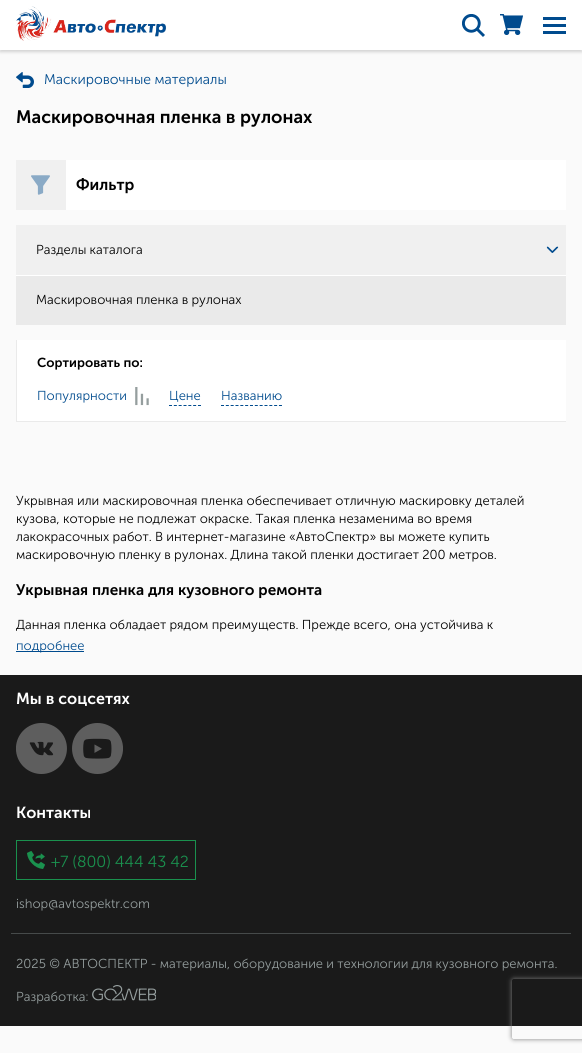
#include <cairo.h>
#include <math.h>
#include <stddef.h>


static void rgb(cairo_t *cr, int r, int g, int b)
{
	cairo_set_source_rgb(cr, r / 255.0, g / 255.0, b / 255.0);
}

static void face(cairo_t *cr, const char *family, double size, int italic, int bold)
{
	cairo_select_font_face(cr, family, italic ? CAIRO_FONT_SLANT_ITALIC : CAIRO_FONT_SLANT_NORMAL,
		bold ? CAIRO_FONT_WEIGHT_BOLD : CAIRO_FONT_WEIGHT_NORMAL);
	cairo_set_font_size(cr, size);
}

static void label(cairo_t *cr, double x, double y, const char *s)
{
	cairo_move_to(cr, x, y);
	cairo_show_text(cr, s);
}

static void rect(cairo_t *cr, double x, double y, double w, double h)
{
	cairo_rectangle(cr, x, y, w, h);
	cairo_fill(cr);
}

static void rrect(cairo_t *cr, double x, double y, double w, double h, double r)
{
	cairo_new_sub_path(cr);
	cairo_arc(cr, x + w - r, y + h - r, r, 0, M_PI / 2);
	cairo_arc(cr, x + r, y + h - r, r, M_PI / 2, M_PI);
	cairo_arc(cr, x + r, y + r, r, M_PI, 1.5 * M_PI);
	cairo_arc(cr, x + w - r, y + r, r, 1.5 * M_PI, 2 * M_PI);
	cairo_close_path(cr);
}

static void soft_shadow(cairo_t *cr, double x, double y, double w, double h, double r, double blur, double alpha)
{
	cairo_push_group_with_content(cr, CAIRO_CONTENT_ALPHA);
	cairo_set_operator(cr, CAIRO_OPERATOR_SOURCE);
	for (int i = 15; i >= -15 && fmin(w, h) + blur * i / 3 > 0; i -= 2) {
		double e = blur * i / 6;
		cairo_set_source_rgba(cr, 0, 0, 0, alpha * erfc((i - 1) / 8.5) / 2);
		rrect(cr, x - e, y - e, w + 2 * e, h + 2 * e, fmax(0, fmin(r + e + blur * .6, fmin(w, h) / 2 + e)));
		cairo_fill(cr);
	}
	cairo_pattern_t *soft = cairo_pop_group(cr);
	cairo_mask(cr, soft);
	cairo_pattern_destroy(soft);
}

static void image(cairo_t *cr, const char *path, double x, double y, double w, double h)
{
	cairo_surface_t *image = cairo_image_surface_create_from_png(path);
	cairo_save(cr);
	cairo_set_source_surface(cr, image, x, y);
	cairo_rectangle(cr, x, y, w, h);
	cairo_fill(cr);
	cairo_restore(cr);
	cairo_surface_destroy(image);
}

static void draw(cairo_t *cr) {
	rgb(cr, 250, 250, 250);
	cairo_paint(cr);
	rgb(cr, 0, 0, 0);
	soft_shadow(cr, 0, 2, 582, 50, 0, 1.5, 0.16);
	rgb(cr, 255, 255, 255);
	rect(cr, 0, 0, 582, 50);
	image(cr, "image0.png", 16, 6, 150, 35);
	image(cr, "image1.png", 462, 14, 23, 23);
	image(cr, "image2.png", 500, 14, 23, 21);
	rgb(cr, 0, 75, 142);
	rect(cr, 543, 24, 23, 3);
	rect(cr, 543, 17, 23, 3);
	rect(cr, 543, 31, 23, 3);
	image(cr, "image3.png", 16, 72, 18, 16);
	face(cr, "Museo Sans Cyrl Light", 14, 0, 0);
	label(cr, 44, 84, "Маскировочные материалы");
	face(cr, "Museo Sans Cyrl SemiBold", 18, 0, 0);
	rgb(cr, 0, 0, 0);
	label(cr, 16, 123, "Маскировочная пленка в рулонах");
	rgb(cr, 240, 240, 240);
	rect(cr, 16, 160, 50, 50);
	image(cr, "image4.png", 31, 175, 19, 20);
	rgb(cr, 255, 255, 255);
	rect(cr, 66, 160, 500, 50);
	face(cr, "Museo Sans Cyrl SemiBold", 16, 0, 0);
	rgb(cr, 0, 0, 0);
	label(cr, 76, 190, "Фильтр");
	rgb(cr, 240, 240, 240);
	rect(cr, 16, 225, 550, 50);
	face(cr, "Museo Sans Cyrl Light", 13, 0, 0);
	rgb(cr, 0, 0, 0);
	label(cr, 36, 254, "Разделы каталога");
	image(cr, "image5.png", 546, 246, 13, 7);
	rgb(cr, 234, 234, 234);
	rect(cr, 16, 276, 550, 49);
	rgb(cr, 255, 255, 255);
	rect(cr, 16, 275, 550, 1);
	rgb(cr, 0, 0, 0);
	label(cr, 36, 304, "Маскировочная пленка в рулонах");
	rgb(cr, 255, 255, 255);
	rect(cr, 17, 340, 549, 81);
	rgb(cr, 234, 234, 234);
	rect(cr, 16, 421, 550, 1);
	rect(cr, 16, 340, 1, 82);
	face(cr, "Museo Sans Cyrl SemiBold", 13, 0, 0);
	rgb(cr, 0, 0, 0);
	label(cr, 37, 367, "Сортировать по:");
	face(cr, "Museo Sans Cyrl Light", 13, 0, 0);
	rgb(cr, 0, 75, 142);
	label(cr, 37, 400, "Популярности");
	image(cr, "image6.png", 135, 387, 14, 19);
	cairo_new_path(cr);
	cairo_move_to(cr, 169, 405.5);
	cairo_line_to(cr, 201, 405.5);
	cairo_set_line_width(cr, 1);
	cairo_set_dash(cr, (double[]){3, 1.83}, 2, 0);
	cairo_stroke(cr);
	label(cr, 169, 400, "Цене");
	cairo_new_path(cr);
	cairo_move_to(cr, 221, 405.5);
	cairo_line_to(cr, 282, 405.5);
	cairo_stroke(cr);
	label(cr, 221, 400, "Названию");
	rgb(cr, 0, 0, 0);
	label(cr, 16, 505, "Укрывная или маскировочная пленка обеспечивает отличную маскировку деталей");
	label(cr, 16, 523, "кузова, которые не подлежат окраске. Такая пленка незаменима во время");
	label(cr, 16, 541, "лакокрасочных работ. В интернет-магазине «АвтоСпектр» вы можете купить");
	label(cr, 16, 559, "маскировочную пленку в рулонах. Длина такой пленки достигает 200 метров.");
	face(cr, "Museo Sans Cyrl SemiBold", 15.25, 0, 0);
	label(cr, 16, 595, "Укрывная пленка для кузовного ремонта");
	face(cr, "Museo Sans Cyrl Light", 13, 0, 0);
	label(cr, 16, 629, "Данная пленка обладает рядом преимуществ. Прежде всего, она устойчива к");
	rgb(cr, 0, 75, 142);
	rect(cr, 16, 651, 68, 1);
	label(cr, 16, 650, "подробнее");
	rgb(cr, 26, 26, 26);
	rect(cr, 0, 675, 582, 351);
	rgb(cr, 70, 74, 74);
	rect(cr, 11, 933, 560, 1);
	face(cr, "Museo Sans Cyrl SemiBold", 16, 0, 0);
	rgb(cr, 255, 255, 255);
	label(cr, 16, 704, "Мы в соцсетях");
	image(cr, "image7.png", 16, 723, 51, 51);
	image(cr, "image8.png", 72, 723, 51, 51);
	label(cr, 16, 818, "Контакты");
	cairo_rectangle(cr, 16.5, 840.5, 179, 39);
	rgb(cr, 26, 145, 78);
	cairo_set_dash(cr, NULL, 0, 0);
	cairo_stroke(cr);
	image(cr, "image9.png", 27, 851, 18, 18);
	face(cr, "Museo Sans Cyrl Light", 16, 0, 0);
	label(cr, 51, 867, "+7 (800) 444 43 42");
	face(cr, "Museo Sans Cyrl Light", 13, 0, 0);
	rgb(cr, 149, 158, 158);
	label(cr, 16, 908, "ishop@avtospektr.com");
	label(cr, 16, 968, "2025 © АВТОСПЕКТР - материалы, оборудование и технологии для кузовного ремонта.");
	label(cr, 16, 1001, "Разработка:");
	image(cr, "image10.png", 92, 985, 64, 16);
	cairo_save(cr);
	cairo_set_fill_rule(cr, CAIRO_FILL_RULE_EVEN_ODD);
	cairo_new_path(cr);
	cairo_move_to(cr, 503, 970);
	cairo_line_to(cr, 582, 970);
	cairo_line_to(cr, 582, 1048);
	cairo_line_to(cr, 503, 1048);
	cairo_close_path(cr);
	cairo_move_to(cr, 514, 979);
	cairo_line_to(cr, 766, 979);
	cairo_curve_to(cr, 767, 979, 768, 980, 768, 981);
	cairo_line_to(cr, 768, 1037);
	cairo_curve_to(cr, 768, 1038, 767, 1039, 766, 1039);
	cairo_line_to(cr, 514, 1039);
	cairo_curve_to(cr, 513, 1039, 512, 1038, 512, 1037);
	cairo_line_to(cr, 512, 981);
	cairo_curve_to(cr, 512, 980, 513, 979, 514, 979);
	cairo_close_path(cr);
	cairo_clip(cr);
	rgb(cr, 128, 128, 128);
	soft_shadow(cr, 512, 979, 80, 60, 2, 2.5, 1);
	cairo_restore(cr);
}

int main(void) {
	cairo_surface_t *surface = cairo_image_surface_create(CAIRO_FORMAT_RGB24, 582, 1053);
	cairo_t *cr = cairo_create(surface);
	cairo_font_options_t *options = cairo_font_options_create();
	cairo_font_options_set_hint_metrics(options, CAIRO_HINT_METRICS_OFF);
	cairo_font_options_set_hint_style(options, CAIRO_HINT_STYLE_NONE);
	cairo_set_font_options(cr, options);
	cairo_set_miter_limit(cr, 4);
	draw(cr);
	cairo_surface_write_to_png(surface, "render.png");
	cairo_font_options_destroy(options);
	cairo_destroy(cr);
	cairo_surface_destroy(surface);
	return 0;
}
